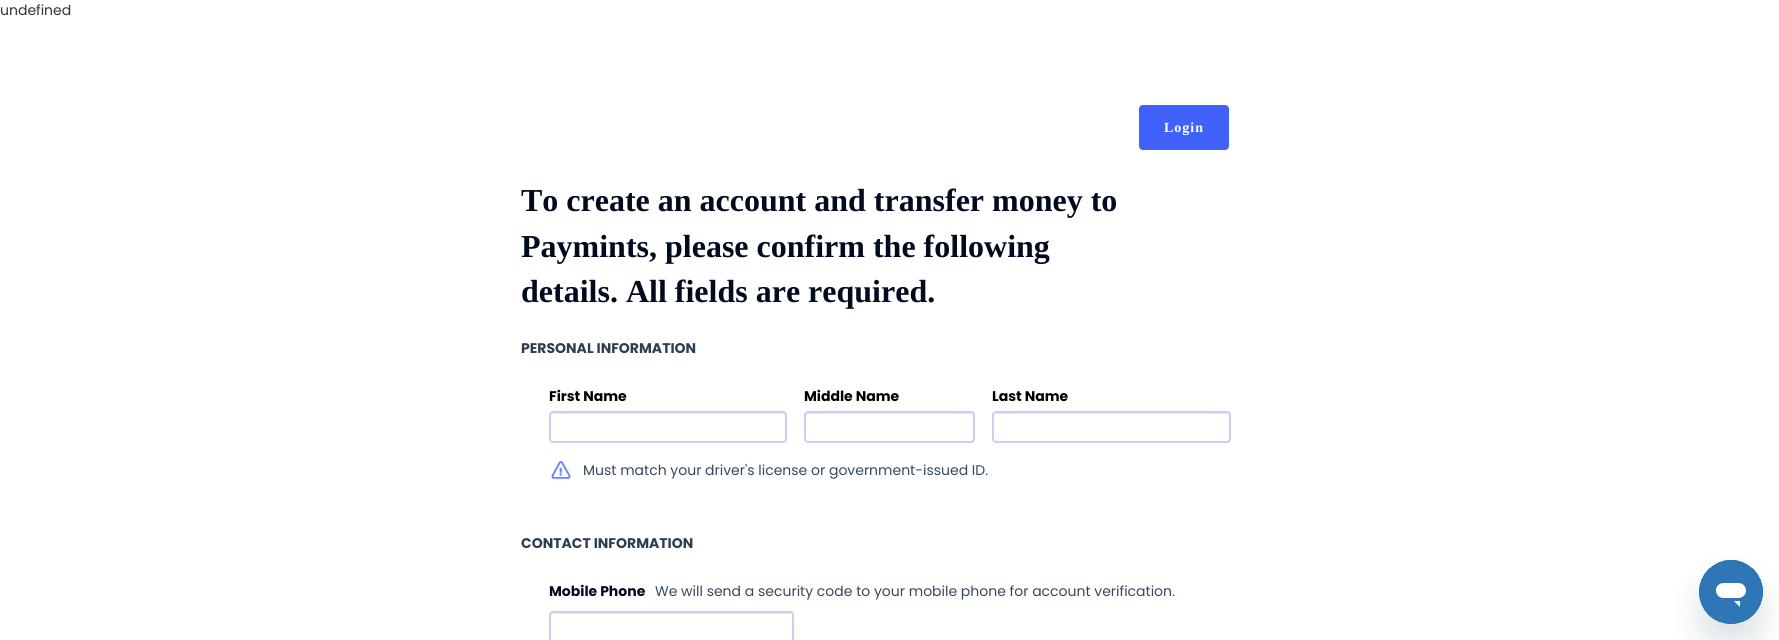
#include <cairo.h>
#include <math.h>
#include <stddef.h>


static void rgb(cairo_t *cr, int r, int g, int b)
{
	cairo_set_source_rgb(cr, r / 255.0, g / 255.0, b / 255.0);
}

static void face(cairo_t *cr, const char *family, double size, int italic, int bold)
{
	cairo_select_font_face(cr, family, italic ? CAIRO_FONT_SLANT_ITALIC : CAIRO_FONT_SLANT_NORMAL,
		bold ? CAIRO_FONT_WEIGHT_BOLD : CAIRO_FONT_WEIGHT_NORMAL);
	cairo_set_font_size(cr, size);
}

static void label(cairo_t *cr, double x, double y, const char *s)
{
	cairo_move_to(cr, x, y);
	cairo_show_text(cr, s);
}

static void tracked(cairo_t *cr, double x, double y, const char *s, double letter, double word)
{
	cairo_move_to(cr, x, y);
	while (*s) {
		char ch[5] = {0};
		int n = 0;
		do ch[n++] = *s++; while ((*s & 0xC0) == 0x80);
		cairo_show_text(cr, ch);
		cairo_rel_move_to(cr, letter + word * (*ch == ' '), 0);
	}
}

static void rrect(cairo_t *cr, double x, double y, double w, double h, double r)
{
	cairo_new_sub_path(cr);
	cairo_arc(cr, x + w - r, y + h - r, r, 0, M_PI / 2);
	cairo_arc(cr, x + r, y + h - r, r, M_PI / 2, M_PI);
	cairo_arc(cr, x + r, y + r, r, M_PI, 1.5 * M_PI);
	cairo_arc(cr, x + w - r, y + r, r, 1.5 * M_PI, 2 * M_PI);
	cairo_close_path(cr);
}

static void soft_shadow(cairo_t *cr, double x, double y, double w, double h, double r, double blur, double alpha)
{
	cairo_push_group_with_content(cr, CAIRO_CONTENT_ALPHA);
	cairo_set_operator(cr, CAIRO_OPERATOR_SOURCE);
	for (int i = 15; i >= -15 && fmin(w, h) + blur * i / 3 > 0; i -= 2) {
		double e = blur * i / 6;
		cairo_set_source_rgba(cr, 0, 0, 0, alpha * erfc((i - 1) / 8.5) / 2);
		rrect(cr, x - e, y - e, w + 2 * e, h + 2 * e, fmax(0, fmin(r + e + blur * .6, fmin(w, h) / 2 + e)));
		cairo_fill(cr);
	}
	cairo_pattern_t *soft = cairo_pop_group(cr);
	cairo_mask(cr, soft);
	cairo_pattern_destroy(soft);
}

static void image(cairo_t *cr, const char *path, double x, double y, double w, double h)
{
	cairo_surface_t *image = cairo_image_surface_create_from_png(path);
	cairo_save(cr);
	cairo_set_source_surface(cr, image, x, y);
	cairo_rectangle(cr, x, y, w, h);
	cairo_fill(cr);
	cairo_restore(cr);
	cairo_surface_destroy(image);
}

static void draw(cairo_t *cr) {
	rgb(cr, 255, 255, 255);
	cairo_paint(cr);
	face(cr, "Poppins", 14, 0, 0);
	rgb(cr, 51, 51, 51);
	label(cr, 0, 15, "undefined");
	rgb(cr, 65, 98, 250);
	rrect(cr, 1139.5, 105.5, 89, 44, 3.5);
	cairo_fill_preserve(cr);
	cairo_set_line_width(cr, 1);
	cairo_stroke(cr);
	face(cr, "Liberation Serif", 14, 0, 1);
	rgb(cr, 255, 255, 255);
	tracked(cr, 1164, 132, "Login", 1, 0);
	face(cr, "Liberation Serif", 32, 0, 1);
	rgb(cr, 1, 11, 31);
	label(cr, 521, 211, "To create an account and transfer money to");
	label(cr, 521, 257, "Paymints, please confirm the following");
	label(cr, 521, 302, "details. All fields are required.");
	face(cr, "Poppins", 14, 0, 1);
	rgb(cr, 44, 62, 80);
	label(cr, 521, 353, "PERSONAL INFORMATION");
	rgb(cr, 0, 0, 0);
	label(cr, 549, 401, "First Name");
	rgb(cr, 236, 236, 236);
	cairo_new_path(cr);
	cairo_move_to(cr, 553, 414);
	cairo_line_to(cr, 783, 414);
	cairo_curve_to(cr, 784, 414, 785, 415, 785, 416);
	cairo_curve_to(cr, 785, 415, 785, 413, 783, 413);
	cairo_line_to(cr, 553, 413);
	cairo_line_to(cr, 551, 414);
	cairo_line_to(cr, 551, 416);
	cairo_curve_to(cr, 551, 415, 552, 414, 553, 414);
	cairo_close_path(cr);
	cairo_fill(cr);
	rrect(cr, 550, 412, 236, 30, 3);
	rgb(cr, 201, 209, 242);
	cairo_set_line_width(cr, 2);
	cairo_stroke(cr);
	rgb(cr, 0, 0, 0);
	label(cr, 804, 401, "Middle Name");
	rgb(cr, 236, 236, 236);
	cairo_new_path(cr);
	cairo_move_to(cr, 808, 414);
	cairo_line_to(cr, 971, 414);
	cairo_curve_to(cr, 972, 414, 973, 415, 973, 416);
	cairo_curve_to(cr, 973, 415, 973, 413, 971, 413);
	cairo_line_to(cr, 808, 413);
	cairo_curve_to(cr, 806, 413, 806, 415, 806, 416);
	cairo_curve_to(cr, 806, 415, 807, 414, 808, 414);
	cairo_close_path(cr);
	cairo_fill(cr);
	rrect(cr, 805, 412, 169, 30, 3);
	rgb(cr, 201, 209, 242);
	cairo_stroke(cr);
	rgb(cr, 0, 0, 0);
	label(cr, 992, 401, "Last Name");
	rgb(cr, 236, 236, 236);
	cairo_new_path(cr);
	cairo_move_to(cr, 996, 414);
	cairo_line_to(cr, 1227, 414);
	cairo_curve_to(cr, 1228, 414, 1229, 415, 1229, 416);
	cairo_curve_to(cr, 1229, 415, 1229, 413, 1227, 413);
	cairo_line_to(cr, 996, 413);
	cairo_line_to(cr, 994, 414);
	cairo_line_to(cr, 994, 416);
	cairo_curve_to(cr, 994, 415, 995, 414, 996, 414);
	cairo_close_path(cr);
	cairo_fill(cr);
	rrect(cr, 993, 412, 237, 30, 3);
	rgb(cr, 201, 209, 242);
	cairo_stroke(cr);
	image(cr, "image0.png", 551, 460, 21, 20);
	face(cr, "Poppins", 14, 0, 0);
	rgb(cr, 52, 73, 94);
	label(cr, 583, 475, "Must match your driver's license or government-issued ID.");
	face(cr, "Poppins", 14, 0, 1);
	rgb(cr, 44, 62, 80);
	label(cr, 521, 548, "CONTACT INFORMATION");
	rgb(cr, 1, 11, 31);
	label(cr, 549, 596, "Mobile Phone");
	face(cr, "Poppins", 14, 0, 0);
	rgb(cr, 52, 73, 94);
	label(cr, 655, 596, "We will send a security code to your mobile phone for account verification.");
	rgb(cr, 236, 236, 236);
	cairo_new_path(cr);
	cairo_move_to(cr, 553, 614);
	cairo_line_to(cr, 790, 614);
	cairo_curve_to(cr, 791, 614, 792, 615, 792, 616);
	cairo_line_to(cr, 792, 614);
	cairo_line_to(cr, 790, 613);
	cairo_line_to(cr, 553, 613);
	cairo_curve_to(cr, 551, 613, 551, 615, 551, 616);
	cairo_curve_to(cr, 551, 615, 552, 614, 553, 614);
	cairo_close_path(cr);
	cairo_fill(cr);
	rrect(cr, 550, 612, 243, 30, 3);
	rgb(cr, 201, 209, 242);
	cairo_stroke(cr);
	rgb(cr, 23, 73, 77);
	soft_shadow(cr, 1699, 580, 64, 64, 32, 15, 0.15);
	image(cr, "image1.png", 1699, 560, 64, 64);
}

int main(void) {
	cairo_surface_t *surface = cairo_image_surface_create(CAIRO_FORMAT_RGB24, 1779, 640);
	cairo_t *cr = cairo_create(surface);
	cairo_font_options_t *options = cairo_font_options_create();
	cairo_font_options_set_hint_metrics(options, CAIRO_HINT_METRICS_OFF);
	cairo_font_options_set_hint_style(options, CAIRO_HINT_STYLE_NONE);
	cairo_set_font_options(cr, options);
	cairo_set_miter_limit(cr, 4);
	draw(cr);
	cairo_surface_write_to_png(surface, "render.png");
	cairo_font_options_destroy(options);
	cairo_destroy(cr);
	cairo_surface_destroy(surface);
	return 0;
}
